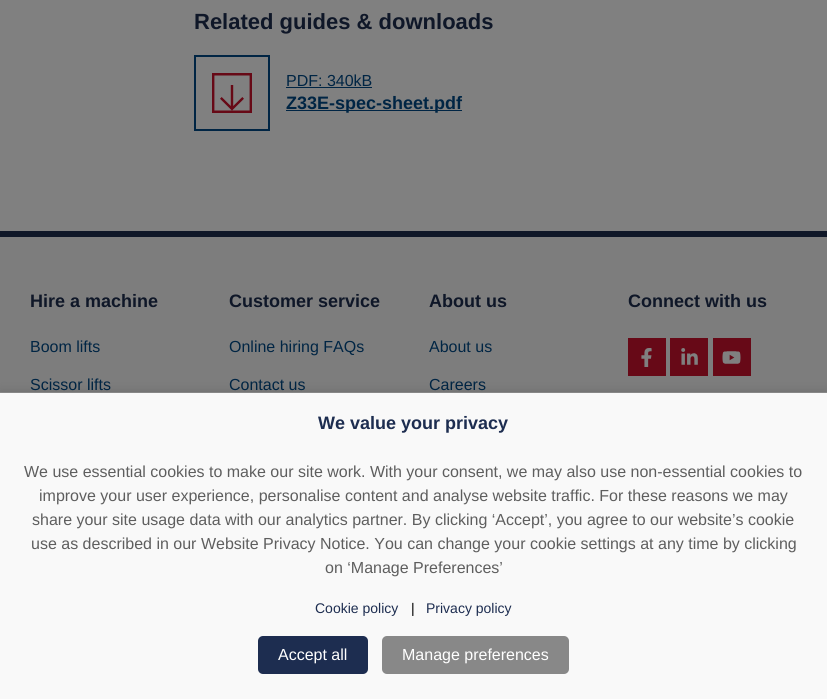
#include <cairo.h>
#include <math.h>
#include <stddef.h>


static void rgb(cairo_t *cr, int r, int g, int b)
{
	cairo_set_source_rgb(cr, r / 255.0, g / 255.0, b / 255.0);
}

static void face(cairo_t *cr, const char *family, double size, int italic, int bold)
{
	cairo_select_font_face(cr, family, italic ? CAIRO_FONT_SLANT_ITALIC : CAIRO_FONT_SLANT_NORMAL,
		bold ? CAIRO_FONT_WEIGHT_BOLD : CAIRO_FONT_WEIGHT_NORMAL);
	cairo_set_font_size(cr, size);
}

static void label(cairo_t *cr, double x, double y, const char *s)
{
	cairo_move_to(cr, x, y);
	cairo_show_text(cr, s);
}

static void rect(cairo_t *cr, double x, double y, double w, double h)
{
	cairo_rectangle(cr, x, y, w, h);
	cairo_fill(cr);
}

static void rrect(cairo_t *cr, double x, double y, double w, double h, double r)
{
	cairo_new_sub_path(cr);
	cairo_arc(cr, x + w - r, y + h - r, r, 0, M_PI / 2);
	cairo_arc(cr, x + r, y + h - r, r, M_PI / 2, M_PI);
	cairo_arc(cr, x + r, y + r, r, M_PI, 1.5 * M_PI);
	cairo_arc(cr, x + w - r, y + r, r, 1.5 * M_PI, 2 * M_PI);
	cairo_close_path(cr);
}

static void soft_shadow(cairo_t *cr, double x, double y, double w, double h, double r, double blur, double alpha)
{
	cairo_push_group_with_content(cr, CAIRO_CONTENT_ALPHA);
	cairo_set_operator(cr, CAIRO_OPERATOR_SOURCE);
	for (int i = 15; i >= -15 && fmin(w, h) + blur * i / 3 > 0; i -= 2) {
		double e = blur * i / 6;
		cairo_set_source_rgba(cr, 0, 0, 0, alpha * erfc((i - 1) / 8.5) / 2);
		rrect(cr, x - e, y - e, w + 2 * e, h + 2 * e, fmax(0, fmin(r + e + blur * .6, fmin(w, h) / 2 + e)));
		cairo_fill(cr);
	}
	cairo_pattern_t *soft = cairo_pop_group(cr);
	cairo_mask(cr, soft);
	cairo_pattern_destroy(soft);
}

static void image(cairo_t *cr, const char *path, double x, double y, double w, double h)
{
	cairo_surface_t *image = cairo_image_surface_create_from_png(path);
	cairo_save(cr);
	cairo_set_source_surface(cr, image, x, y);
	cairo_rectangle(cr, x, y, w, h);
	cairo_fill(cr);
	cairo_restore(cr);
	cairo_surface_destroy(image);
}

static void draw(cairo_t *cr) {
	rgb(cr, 128, 128, 128);
	cairo_paint(cr);
	face(cr, "Liberation Sans", 22, 0, 1);
	rgb(cr, 15, 23, 40);
	label(cr, 194, 29, "Related guides & downloads");
	cairo_rectangle(cr, 195, 56, 74, 74);
	rgb(cr, 0, 37, 68);
	cairo_stroke(cr);
	image(cr, "image0.png", 212, 73, 40, 40);
	face(cr, "Liberation Sans", 16, 0, 0);
	label(cr, 286, 86, "PDF: 340kB");
	rect(cr, 286, 87, 86, 1);
	rect(cr, 286, 110, 176, 1);
	face(cr, "Liberation Sans", 18, 0, 1);
	label(cr, 286, 109, "Z33E-spec-sheet.pdf");
	rgb(cr, 125, 125, 125);
	rect(cr, 0, 237, 827, 155);
	rgb(cr, 15, 23, 40);
	rect(cr, 0, 231, 827, 6);
	label(cr, 30, 307, "Hire a machine");
	face(cr, "Liberation Sans", 16, 0, 0);
	rgb(cr, 0, 37, 68);
	label(cr, 30, 352, "Boom lifts");
	label(cr, 30, 390, "Scissor lifts");
	face(cr, "Liberation Sans", 18, 0, 1);
	rgb(cr, 15, 23, 40);
	label(cr, 229, 307, "Customer service");
	face(cr, "Liberation Sans", 16, 0, 0);
	rgb(cr, 0, 37, 68);
	label(cr, 229, 352, "Online hiring FAQs");
	label(cr, 229, 390, "Contact us");
	face(cr, "Liberation Sans", 18, 0, 1);
	rgb(cr, 15, 23, 40);
	label(cr, 429, 307, "About us");
	face(cr, "Liberation Sans", 16, 0, 0);
	rgb(cr, 0, 37, 68);
	label(cr, 429, 352, "About us");
	label(cr, 429, 390, "Careers");
	face(cr, "Liberation Sans", 18, 0, 1);
	rgb(cr, 15, 23, 40);
	label(cr, 628, 307, "Connect with us");
	rgb(cr, 103, 9, 23);
	rect(cr, 628, 338, 38, 38);
	image(cr, "image1.png", 641, 348, 11, 19);
	rect(cr, 670, 338, 38, 38);
	image(cr, "image2.png", 681, 348, 17, 17);
	rect(cr, 713, 338, 38, 38);
	image(cr, "image3.png", 722, 351, 19, 13);
	rgb(cr, 0, 0, 0);
	soft_shadow(cr, 0, 390, 827, 307, 0, 5, 0.1);
	rgb(cr, 249, 249, 249);
	rect(cr, 0, 393, 827, 306);
	rgb(cr, 136, 136, 136);
	rect(cr, 0, 392, 827, 1);
	rgb(cr, 29, 45, 80);
	label(cr, 318, 429, "We value your privacy");
	face(cr, "Liberation Sans", 16, 0, 0);
	rgb(cr, 94, 94, 94);
	label(cr, 24, 477, "We use essential cookies to make our site work. With your consent, we may also use non-essential cookies to");
	label(cr, 39, 501, "improve your user experience, personalise content and analyse website traffic. For these reasons we may");
	label(cr, 32, 525, "share your site usage data with our analytics partner. By clicking ‘Accept’, you agree to our website’s cookie");
	label(cr, 31, 549, "use as described in our Website Privacy Notice. You can change your cookie settings at any time by clicking");
	label(cr, 325, 573, "on ‘Manage Preferences’");
	face(cr, "Liberation Sans", 14, 0, 0);
	rgb(cr, 29, 45, 80);
	label(cr, 315, 613, "Cookie policy");
	rgb(cr, 0, 0, 0);
	label(cr, 411, 613, "|");
	rgb(cr, 29, 45, 80);
	label(cr, 426, 613, "Privacy policy");
	rrect(cr, 258, 636, 110, 38, 5);
	cairo_fill(cr);
	face(cr, "Liberation Sans", 16, 0, 0);
	rgb(cr, 255, 255, 255);
	label(cr, 278, 660, "Accept all");
	rgb(cr, 136, 136, 136);
	rrect(cr, 382, 636, 187, 38, 5);
	cairo_fill(cr);
	rgb(cr, 255, 255, 255);
	label(cr, 402, 660, "Manage preferences");
}

int main(void) {
	cairo_surface_t *surface = cairo_image_surface_create(CAIRO_FORMAT_RGB24, 827, 699);
	cairo_t *cr = cairo_create(surface);
	cairo_font_options_t *options = cairo_font_options_create();
	cairo_font_options_set_hint_metrics(options, CAIRO_HINT_METRICS_OFF);
	cairo_font_options_set_hint_style(options, CAIRO_HINT_STYLE_NONE);
	cairo_set_font_options(cr, options);
	cairo_set_miter_limit(cr, 4);
	draw(cr);
	cairo_surface_write_to_png(surface, "render.png");
	cairo_font_options_destroy(options);
	cairo_destroy(cr);
	cairo_surface_destroy(surface);
	return 0;
}
